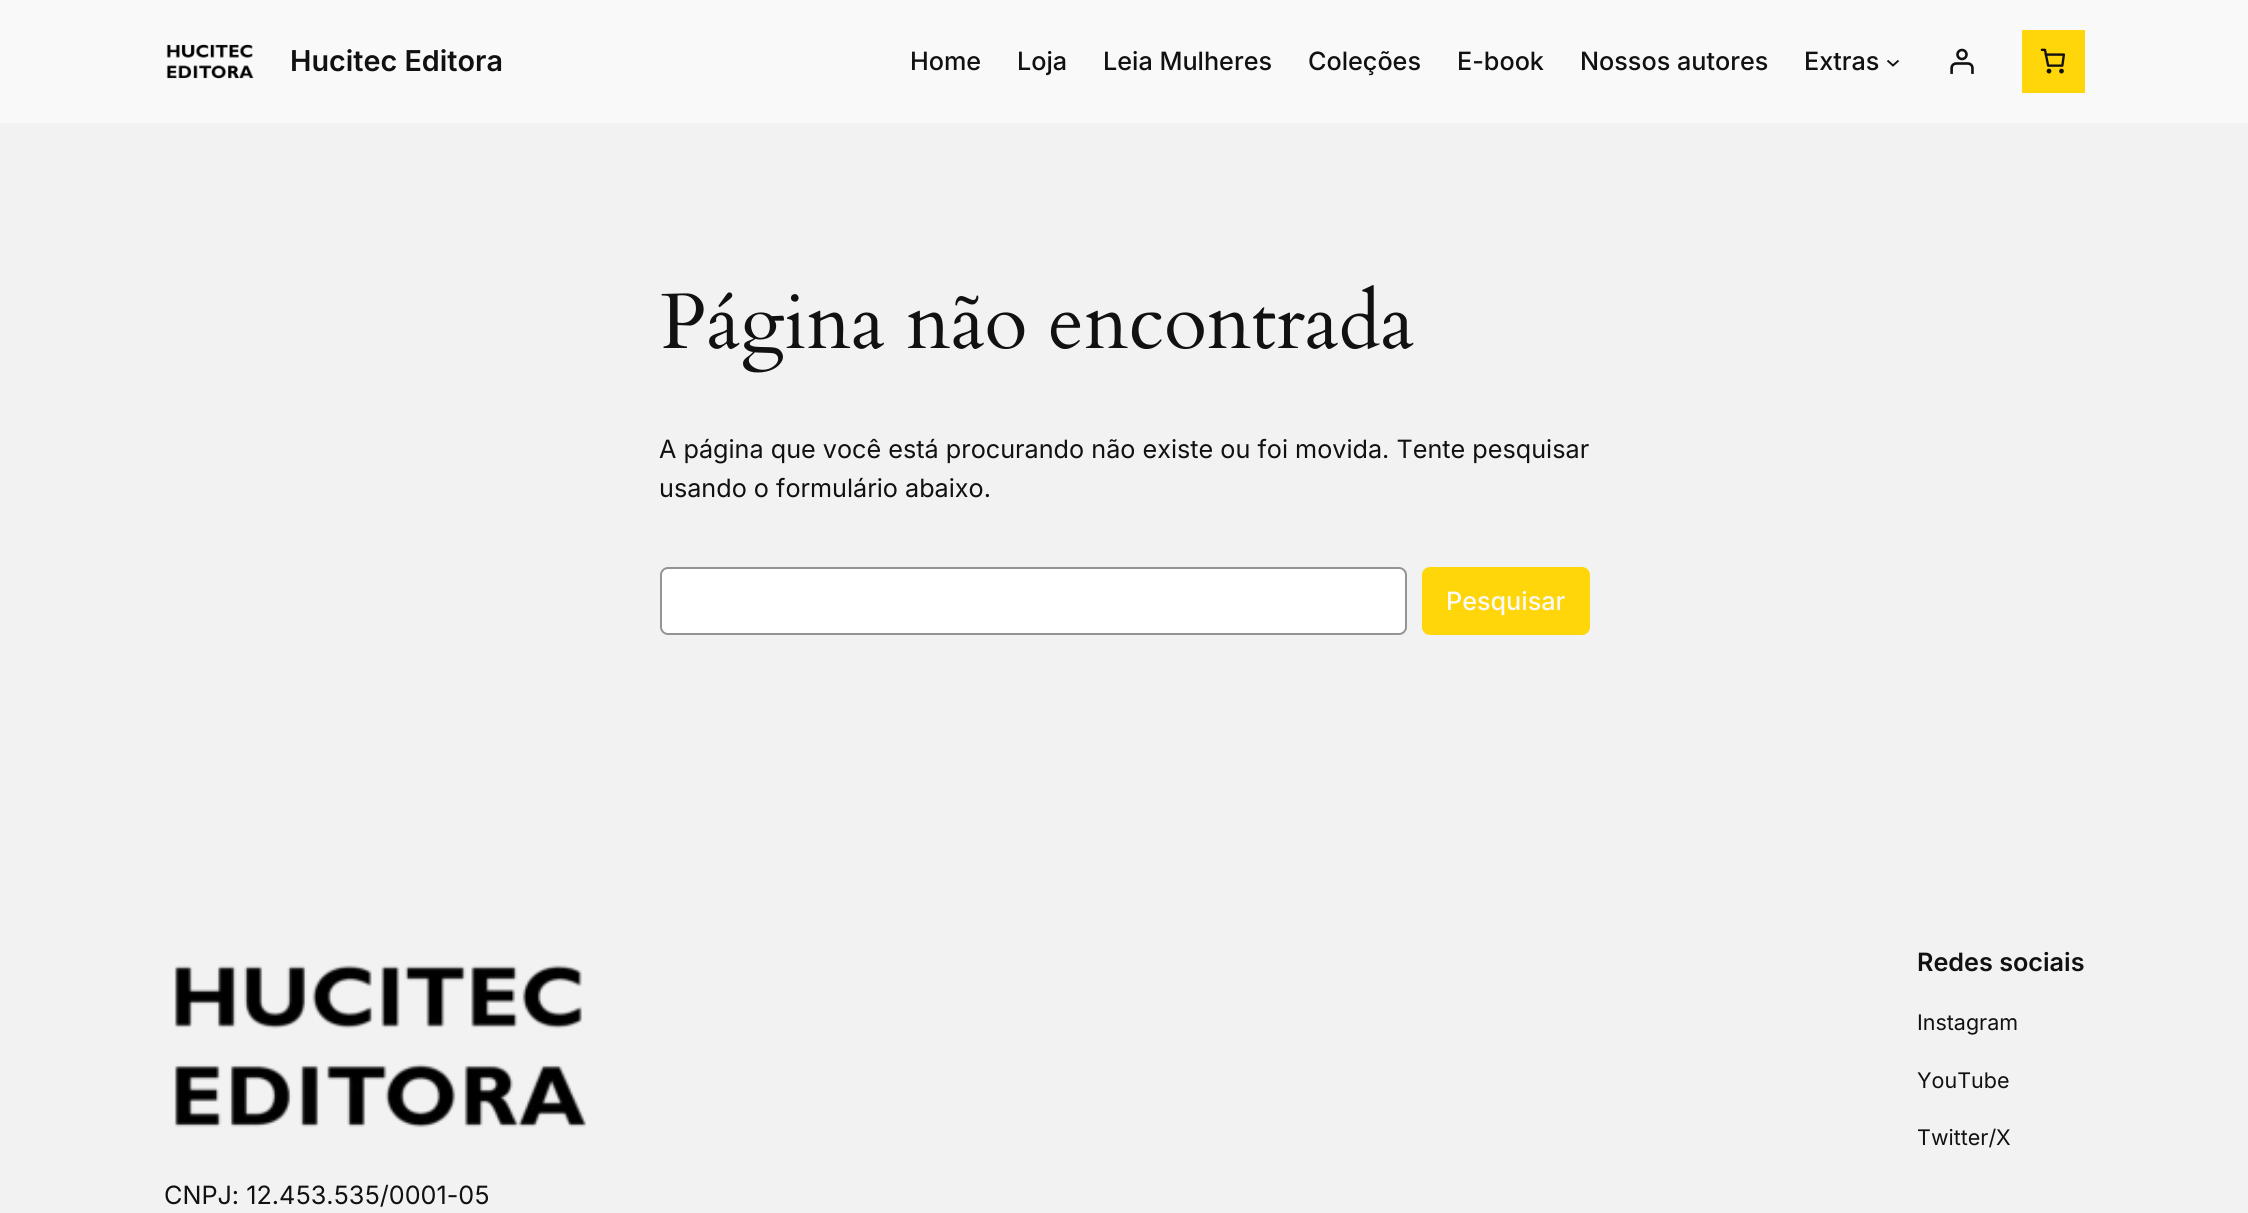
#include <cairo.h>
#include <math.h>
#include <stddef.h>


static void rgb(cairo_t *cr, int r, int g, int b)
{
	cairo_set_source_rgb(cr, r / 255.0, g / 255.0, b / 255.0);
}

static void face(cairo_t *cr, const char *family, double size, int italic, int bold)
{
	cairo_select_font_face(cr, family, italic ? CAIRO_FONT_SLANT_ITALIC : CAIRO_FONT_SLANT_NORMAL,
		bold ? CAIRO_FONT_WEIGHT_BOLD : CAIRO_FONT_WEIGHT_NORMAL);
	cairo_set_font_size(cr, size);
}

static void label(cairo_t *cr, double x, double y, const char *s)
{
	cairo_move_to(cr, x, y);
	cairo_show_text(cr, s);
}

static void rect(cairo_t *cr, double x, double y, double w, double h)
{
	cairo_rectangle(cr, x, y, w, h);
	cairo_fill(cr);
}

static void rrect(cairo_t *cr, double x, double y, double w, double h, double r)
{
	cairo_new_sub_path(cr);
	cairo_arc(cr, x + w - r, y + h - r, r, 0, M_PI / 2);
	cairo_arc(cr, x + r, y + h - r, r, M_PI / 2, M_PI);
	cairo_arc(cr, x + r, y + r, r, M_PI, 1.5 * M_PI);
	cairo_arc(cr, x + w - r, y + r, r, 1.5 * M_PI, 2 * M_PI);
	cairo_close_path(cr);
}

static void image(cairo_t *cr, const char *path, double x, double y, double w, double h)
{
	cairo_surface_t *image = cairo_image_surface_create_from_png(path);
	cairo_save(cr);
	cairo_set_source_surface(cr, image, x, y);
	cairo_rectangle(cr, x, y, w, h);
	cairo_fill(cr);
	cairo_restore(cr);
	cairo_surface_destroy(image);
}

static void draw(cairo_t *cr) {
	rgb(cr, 242, 242, 242);
	cairo_paint(cr);
	rgb(cr, 249, 249, 249);
	rect(cr, 0, 0, 2248, 123);
	image(cr, "image0.png", 166, 44, 88, 35);
	face(cr, "Inter SemiBold", 28.75, 0, 0);
	rgb(cr, 17, 17, 17);
	label(cr, 290, 71, "Hucitec Editora");
	face(cr, "Inter Medium", 25.2, 0, 0);
	label(cr, 910, 70, "Home");
	label(cr, 1017, 70, "Loja");
	label(cr, 1103, 70, "Leia Mulheres");
	label(cr, 1308, 70, "Coleções");
	label(cr, 1457, 70, "E-book");
	label(cr, 1580, 70, "Nossos autores");
	label(cr, 1804, 70, "Extras");
	cairo_new_path(cr);
	cairo_move_to(cr, 1887.5, 60.5);
	cairo_line_to(cr, 1893, 65.5);
	cairo_line_to(cr, 1898.5, 60.5);
	cairo_set_line_width(cr, 1.9);
	cairo_stroke(cr);
	image(cr, "image1.png", 1950, 48, 24, 26);
	rgb(cr, 255, 214, 9);
	rect(cr, 2022, 30, 63, 63);
	image(cr, "image2.png", 2040, 48, 26, 26);
	image(cr, "image3.png", 661, 285, 753, 88);
	face(cr, "Inter", 25.2, 0, 0);
	rgb(cr, 17, 17, 17);
	label(cr, 659, 458, "A página que você está procurando não existe ou foi movida. Tente pesquisar");
	label(cr, 659, 497, "usando o formulário abaixo.");
	rgb(cr, 255, 255, 255);
	rrect(cr, 661, 568, 745, 66, 7);
	cairo_fill_preserve(cr);
	rgb(cr, 148, 148, 148);
	cairo_set_line_width(cr, 2);
	cairo_stroke(cr);
	rgb(cr, 255, 214, 9);
	rrect(cr, 1422, 567, 168, 68, 8);
	cairo_fill(cr);
	face(cr, "Inter Medium", 25.2, 0, 0);
	rgb(cr, 249, 249, 249);
	label(cr, 1446, 610, "Pesquisar");
	face(cr, "Inter SemiBold", 25.2, 0, 0);
	rgb(cr, 17, 17, 17);
	label(cr, 1917, 971, "Redes sociais");
	face(cr, "Inter", 21.5, 0, 0);
	label(cr, 1917, 1030, "Instagram");
	label(cr, 1917, 1088, "YouTube");
	label(cr, 1917, 1145, "Twitter/X");
	image(cr, "image4.png", 174, 965, 412, 163);
	face(cr, "Inter", 25.2, 0, 0);
	label(cr, 164, 1204, "CNPJ: 12.453.535/0001-05");
}

int main(void) {
	cairo_surface_t *surface = cairo_image_surface_create(CAIRO_FORMAT_RGB24, 2248, 1213);
	cairo_t *cr = cairo_create(surface);
	cairo_font_options_t *options = cairo_font_options_create();
	cairo_font_options_set_hint_metrics(options, CAIRO_HINT_METRICS_OFF);
	cairo_font_options_set_hint_style(options, CAIRO_HINT_STYLE_NONE);
	cairo_set_font_options(cr, options);
	cairo_set_miter_limit(cr, 4);
	draw(cr);
	cairo_surface_write_to_png(surface, "render.png");
	cairo_font_options_destroy(options);
	cairo_destroy(cr);
	cairo_surface_destroy(surface);
	return 0;
}
